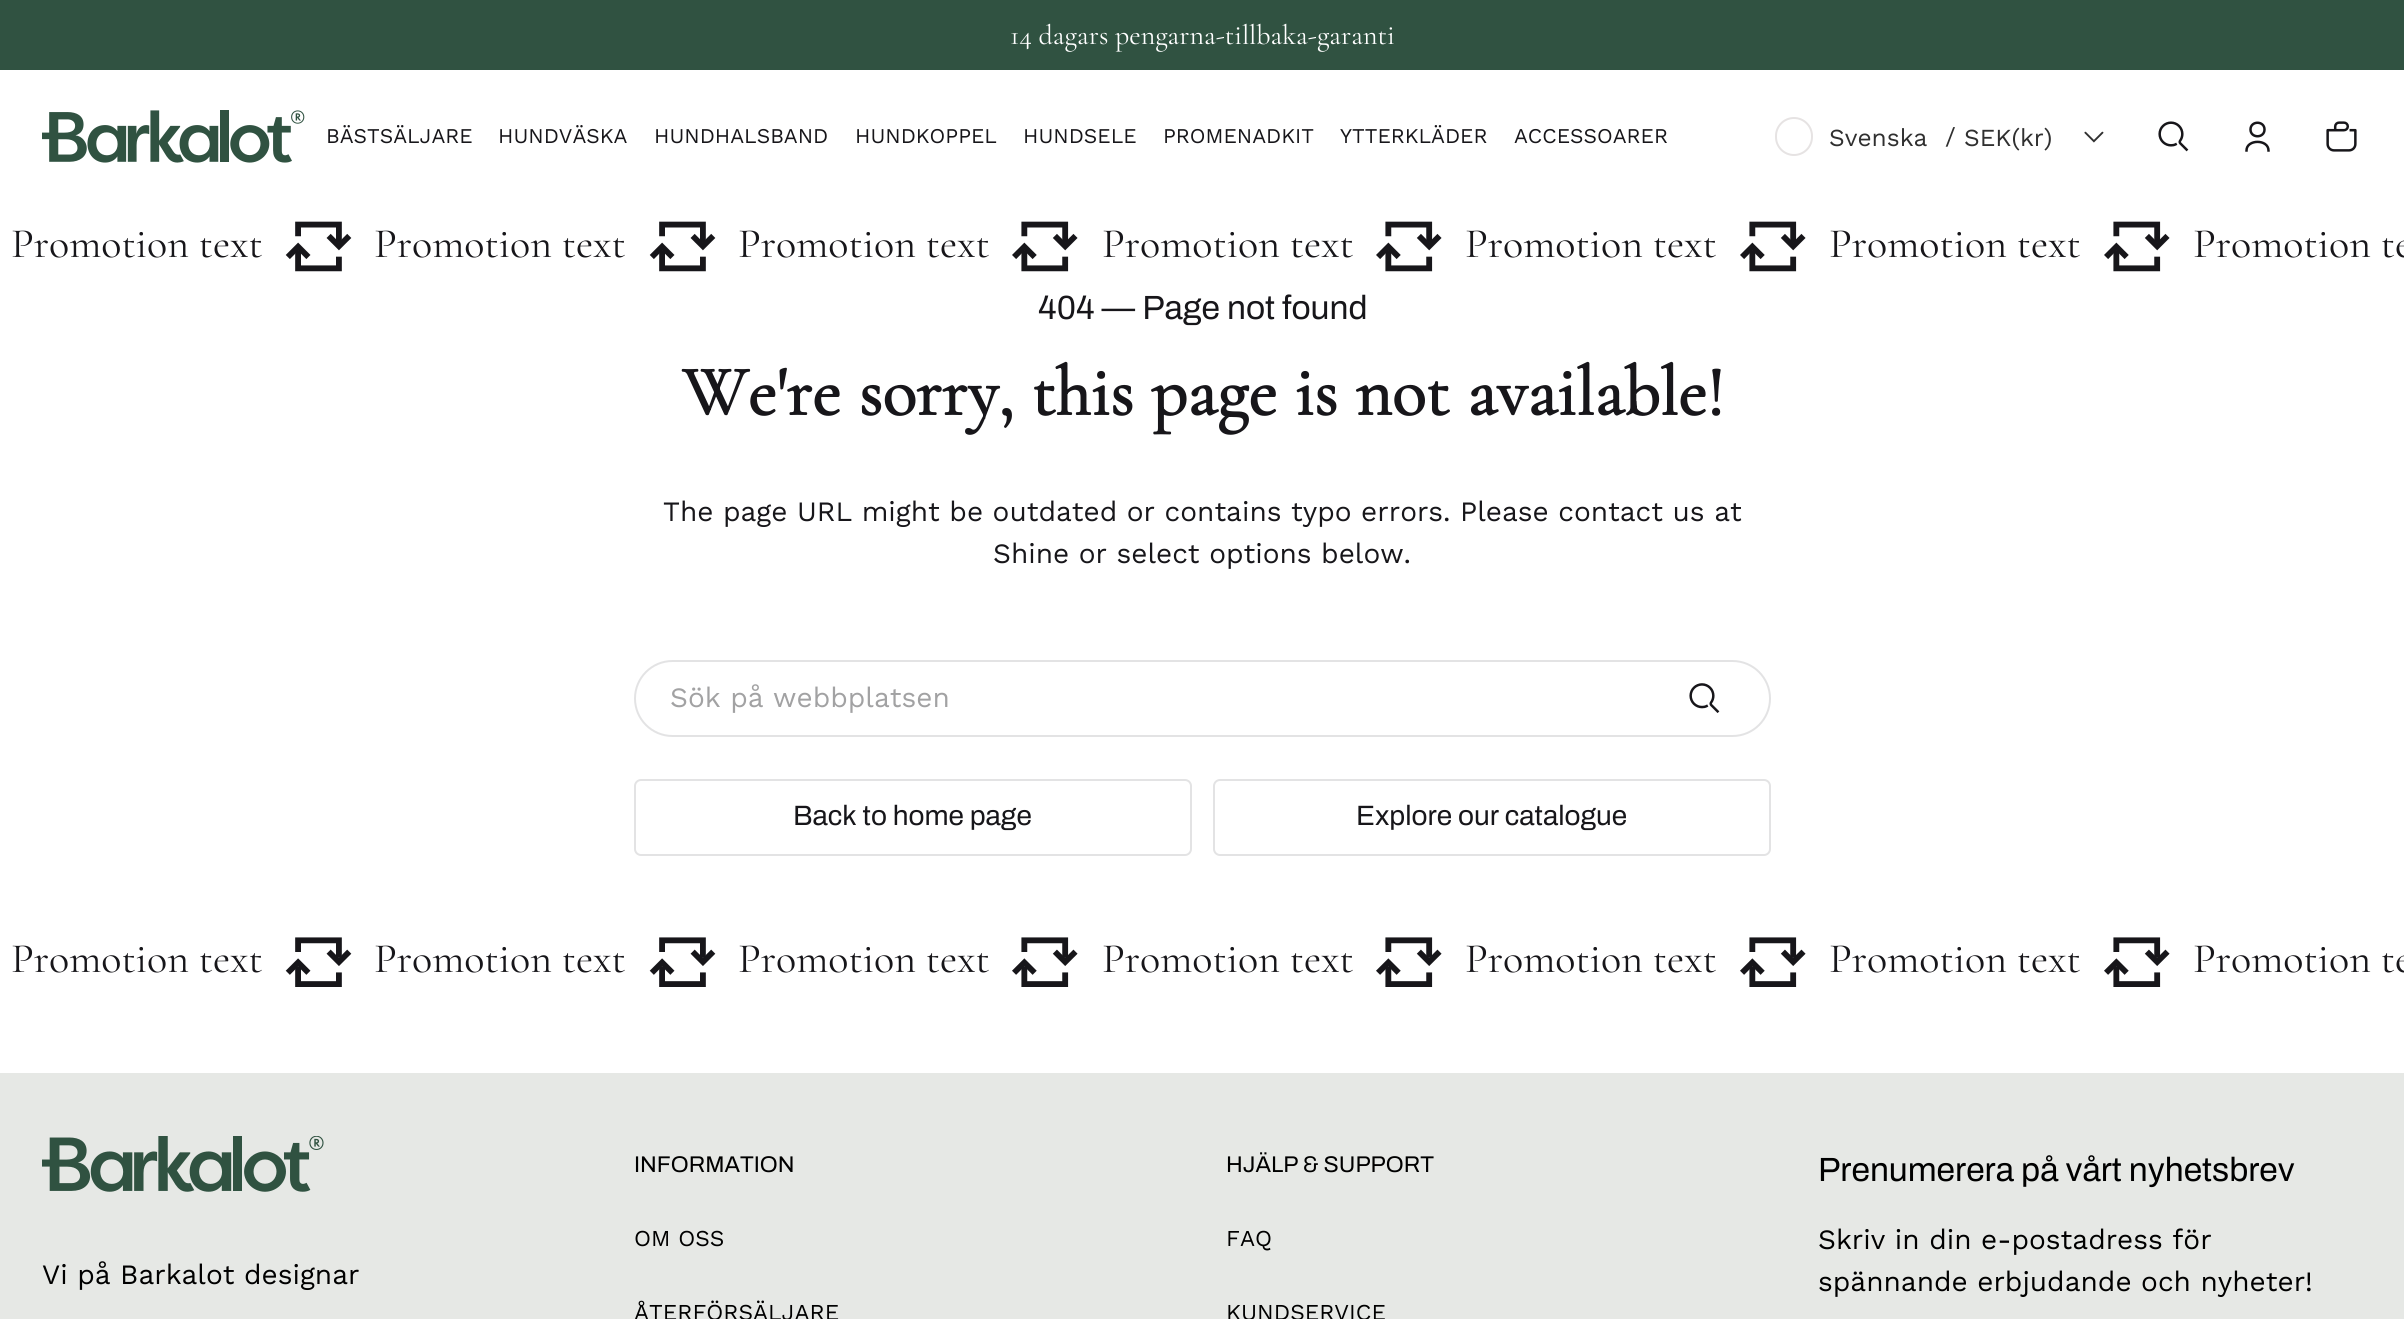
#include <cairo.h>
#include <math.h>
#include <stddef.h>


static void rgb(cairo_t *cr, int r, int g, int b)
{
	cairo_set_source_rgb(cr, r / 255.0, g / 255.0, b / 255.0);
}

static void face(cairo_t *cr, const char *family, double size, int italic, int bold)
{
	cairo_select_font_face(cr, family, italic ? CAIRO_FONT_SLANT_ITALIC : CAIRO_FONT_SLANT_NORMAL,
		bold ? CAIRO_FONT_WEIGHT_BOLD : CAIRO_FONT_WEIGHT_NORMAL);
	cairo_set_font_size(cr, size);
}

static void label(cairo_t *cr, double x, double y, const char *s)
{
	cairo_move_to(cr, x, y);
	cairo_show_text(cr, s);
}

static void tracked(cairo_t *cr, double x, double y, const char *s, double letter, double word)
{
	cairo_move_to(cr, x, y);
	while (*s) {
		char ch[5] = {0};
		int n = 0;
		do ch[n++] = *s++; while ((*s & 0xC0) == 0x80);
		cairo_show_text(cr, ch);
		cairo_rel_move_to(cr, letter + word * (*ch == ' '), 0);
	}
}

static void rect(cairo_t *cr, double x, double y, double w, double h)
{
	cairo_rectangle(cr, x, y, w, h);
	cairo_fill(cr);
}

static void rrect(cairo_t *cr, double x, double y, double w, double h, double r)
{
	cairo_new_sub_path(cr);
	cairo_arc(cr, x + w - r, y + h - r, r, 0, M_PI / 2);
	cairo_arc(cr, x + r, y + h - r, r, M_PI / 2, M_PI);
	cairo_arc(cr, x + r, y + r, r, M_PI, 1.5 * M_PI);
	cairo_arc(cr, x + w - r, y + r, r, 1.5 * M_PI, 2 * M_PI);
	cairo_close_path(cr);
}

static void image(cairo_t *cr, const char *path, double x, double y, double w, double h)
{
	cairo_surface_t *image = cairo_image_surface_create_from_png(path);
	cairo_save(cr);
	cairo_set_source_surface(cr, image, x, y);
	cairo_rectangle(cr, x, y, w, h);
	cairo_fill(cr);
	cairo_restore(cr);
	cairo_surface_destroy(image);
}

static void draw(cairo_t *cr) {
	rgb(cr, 255, 255, 255);
	cairo_paint(cr);
	rgb(cr, 48, 82, 65);
	rect(cr, 0, 0, 2404, 70);
	face(cr, "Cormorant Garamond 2", 28, 0, 0);
	rgb(cr, 255, 255, 255);
	label(cr, 1010, 44, "14 dagars pengarna-tillbaka-garanti");
	image(cr, "image0.png", 42, 110, 263, 53);
	face(cr, "Work Sans", 21, 0, 0);
	rgb(cr, 23, 22, 26);
	label(cr, 326, 143, "BÄSTSÄLJARE");
	label(cr, 498, 143, "HUNDVÄSKA");
	label(cr, 654, 143, "HUNDHALSBAND");
	label(cr, 855, 143, "HUNDKOPPEL");
	label(cr, 1023, 143, "HUNDSELE");
	label(cr, 1163, 143, "PROMENADKIT");
	label(cr, 1340, 143, "YTTERKLÄDER");
	label(cr, 1514, 143, "ACCESSOARER");
	rrect(cr, 1776, 118, 36, 37, 18);
	rgb(cr, 230, 227, 227);
	cairo_stroke(cr);
	face(cr, "Work Sans", 24.5, 0, 0);
	rgb(cr, 48, 48, 48);
	label(cr, 1829, 146, "Svenska");
	label(cr, 1945, 145, "/");
	label(cr, 1964, 146, "SEK(kr)");
	image(cr, "image1.png", 2084, 131, 20, 12);
	image(cr, "image2.png", 2158, 121, 31, 31);
	cairo_new_path(cr);
	cairo_move_to(cr, 2246.5, 150.5);
	cairo_curve_to(cr, 2246.5, 139, 2268.5, 139, 2268.5, 150.5);
	rgb(cr, 23, 22, 26);
	cairo_set_line_width(cr, 2.5);
	cairo_set_line_cap(cr, CAIRO_LINE_CAP_SQUARE);
	cairo_set_line_join(cr, CAIRO_LINE_JOIN_ROUND);
	cairo_stroke(cr);
	cairo_new_path(cr);
	cairo_move_to(cr, 2264.5, 129.5);
	cairo_curve_to(cr, 2264.5, 138.5, 2250.5, 138.5, 2250.5, 129.5);
	cairo_curve_to(cr, 2250.5, 120.5, 2264.5, 120.5, 2264.5, 129.5);
	cairo_close_path(cr);
	cairo_set_line_cap(cr, CAIRO_LINE_CAP_ROUND);
	cairo_stroke(cr);
	image(cr, "image3.png", 2326, 121, 31, 31);
	face(cr, "Cormorant Garamond", 42, 0, 0);
	label(cr, 11, 257, "Promotion text");
	image(cr, "image4.png", 285, 221, 67, 51);
	label(cr, 374, 257, "Promotion text");
	image(cr, "image4.png", 649, 221, 67, 51);
	label(cr, 738, 257, "Promotion text");
	image(cr, "image5.png", 1012, 221, 66, 51);
	label(cr, 1102, 257, "Promotion text");
	image(cr, "image5.png", 1376, 221, 66, 51);
	label(cr, 1465, 257, "Promotion text");
	image(cr, "image5.png", 1740, 221, 66, 51);
	label(cr, 1829, 257, "Promotion text");
	image(cr, "image5.png", 2104, 221, 66, 51);
	label(cr, 2193, 257, "Promotion te");
	face(cr, "Archivo", 33.6, 0, 0);
	label(cr, 1038, 319, "404 — Page not found");
	face(cr, "Cormorant Garamond", 70.6, 0, 1);
	tracked(cr, 682, 415, "We're sorry, this page is not available!", 0, 1);
	face(cr, "Work Sans", 28, 0, 0);
	label(cr, 663, 521, "The page URL might be outdated or contains typo errors. Please contact us at");
	label(cr, 993, 563, "Shine or select options below.");
	rrect(cr, 635, 661, 1135, 75, 37.5);
	rgb(cr, 227, 227, 228);
	cairo_set_line_width(cr, 2);
	cairo_set_line_cap(cr, CAIRO_LINE_CAP_BUTT);
	cairo_set_line_join(cr, CAIRO_LINE_JOIN_MITER);
	cairo_stroke(cr);
	rgb(cr, 162, 162, 163);
	label(cr, 670, 707, "Sök på webbplatsen");
	image(cr, "image6.png", 1689, 683, 31, 30);
	rrect(cr, 635, 780, 556, 75, 6);
	rgb(cr, 227, 227, 228);
	cairo_stroke(cr);
	face(cr, "Archivo", 28, 0, 0);
	rgb(cr, 23, 22, 26);
	label(cr, 793, 825, "Back to home page");
	rrect(cr, 1214, 780, 556, 75, 6);
	rgb(cr, 227, 227, 228);
	cairo_stroke(cr);
	rgb(cr, 23, 22, 26);
	label(cr, 1356, 825, "Explore our catalogue");
	face(cr, "Cormorant Garamond", 42, 0, 0);
	label(cr, 11, 972, "Promotion text");
	image(cr, "image7.png", 285, 937, 67, 50);
	label(cr, 374, 972, "Promotion text");
	image(cr, "image7.png", 649, 937, 67, 50);
	label(cr, 738, 972, "Promotion text");
	image(cr, "image8.png", 1012, 937, 66, 50);
	label(cr, 1102, 972, "Promotion text");
	image(cr, "image8.png", 1376, 937, 66, 50);
	label(cr, 1465, 972, "Promotion text");
	image(cr, "image8.png", 1740, 937, 66, 50);
	label(cr, 1829, 972, "Promotion text");
	image(cr, "image8.png", 2104, 937, 66, 50);
	label(cr, 2193, 972, "Promotion te");
	rgb(cr, 230, 232, 229);
	rect(cr, 0, 1073, 2404, 246);
	image(cr, "image9.png", 42, 1136, 282, 56);
	face(cr, "Work Sans", 28, 0, 0);
	rgb(cr, 0, 0, 0);
	label(cr, 42, 1284, "Vi på Barkalot designar");
	face(cr, "Archivo", 22.75, 0, 0);
	label(cr, 634, 1172, "INFORMATION");
	face(cr, "Work Sans", 22.75, 0, 0);
	label(cr, 634, 1246, "OM OSS");
	label(cr, 634, 1320, "ÅTERFÖRSÄLJARE");
	face(cr, "Archivo", 22.75, 0, 0);
	label(cr, 1226, 1172, "HJÄLP & SUPPORT");
	face(cr, "Work Sans", 22.75, 0, 0);
	label(cr, 1226, 1246, "FAQ");
	label(cr, 1226, 1320, "KUNDSERVICE");
	face(cr, "Archivo", 33.6, 0, 0);
	label(cr, 1818, 1181, "Prenumerera på vårt nyhetsbrev");
	face(cr, "Work Sans", 28, 0, 0);
	label(cr, 1818, 1249, "Skriv in din e-postadress för");
	label(cr, 1818, 1291, "spännande erbjudande och nyheter!");
}

int main(void) {
	cairo_surface_t *surface = cairo_image_surface_create(CAIRO_FORMAT_RGB24, 2404, 1319);
	cairo_t *cr = cairo_create(surface);
	cairo_font_options_t *options = cairo_font_options_create();
	cairo_font_options_set_hint_metrics(options, CAIRO_HINT_METRICS_OFF);
	cairo_font_options_set_hint_style(options, CAIRO_HINT_STYLE_NONE);
	cairo_set_font_options(cr, options);
	cairo_set_miter_limit(cr, 4);
	draw(cr);
	cairo_surface_write_to_png(surface, "render.png");
	cairo_font_options_destroy(options);
	cairo_destroy(cr);
	cairo_surface_destroy(surface);
	return 0;
}
